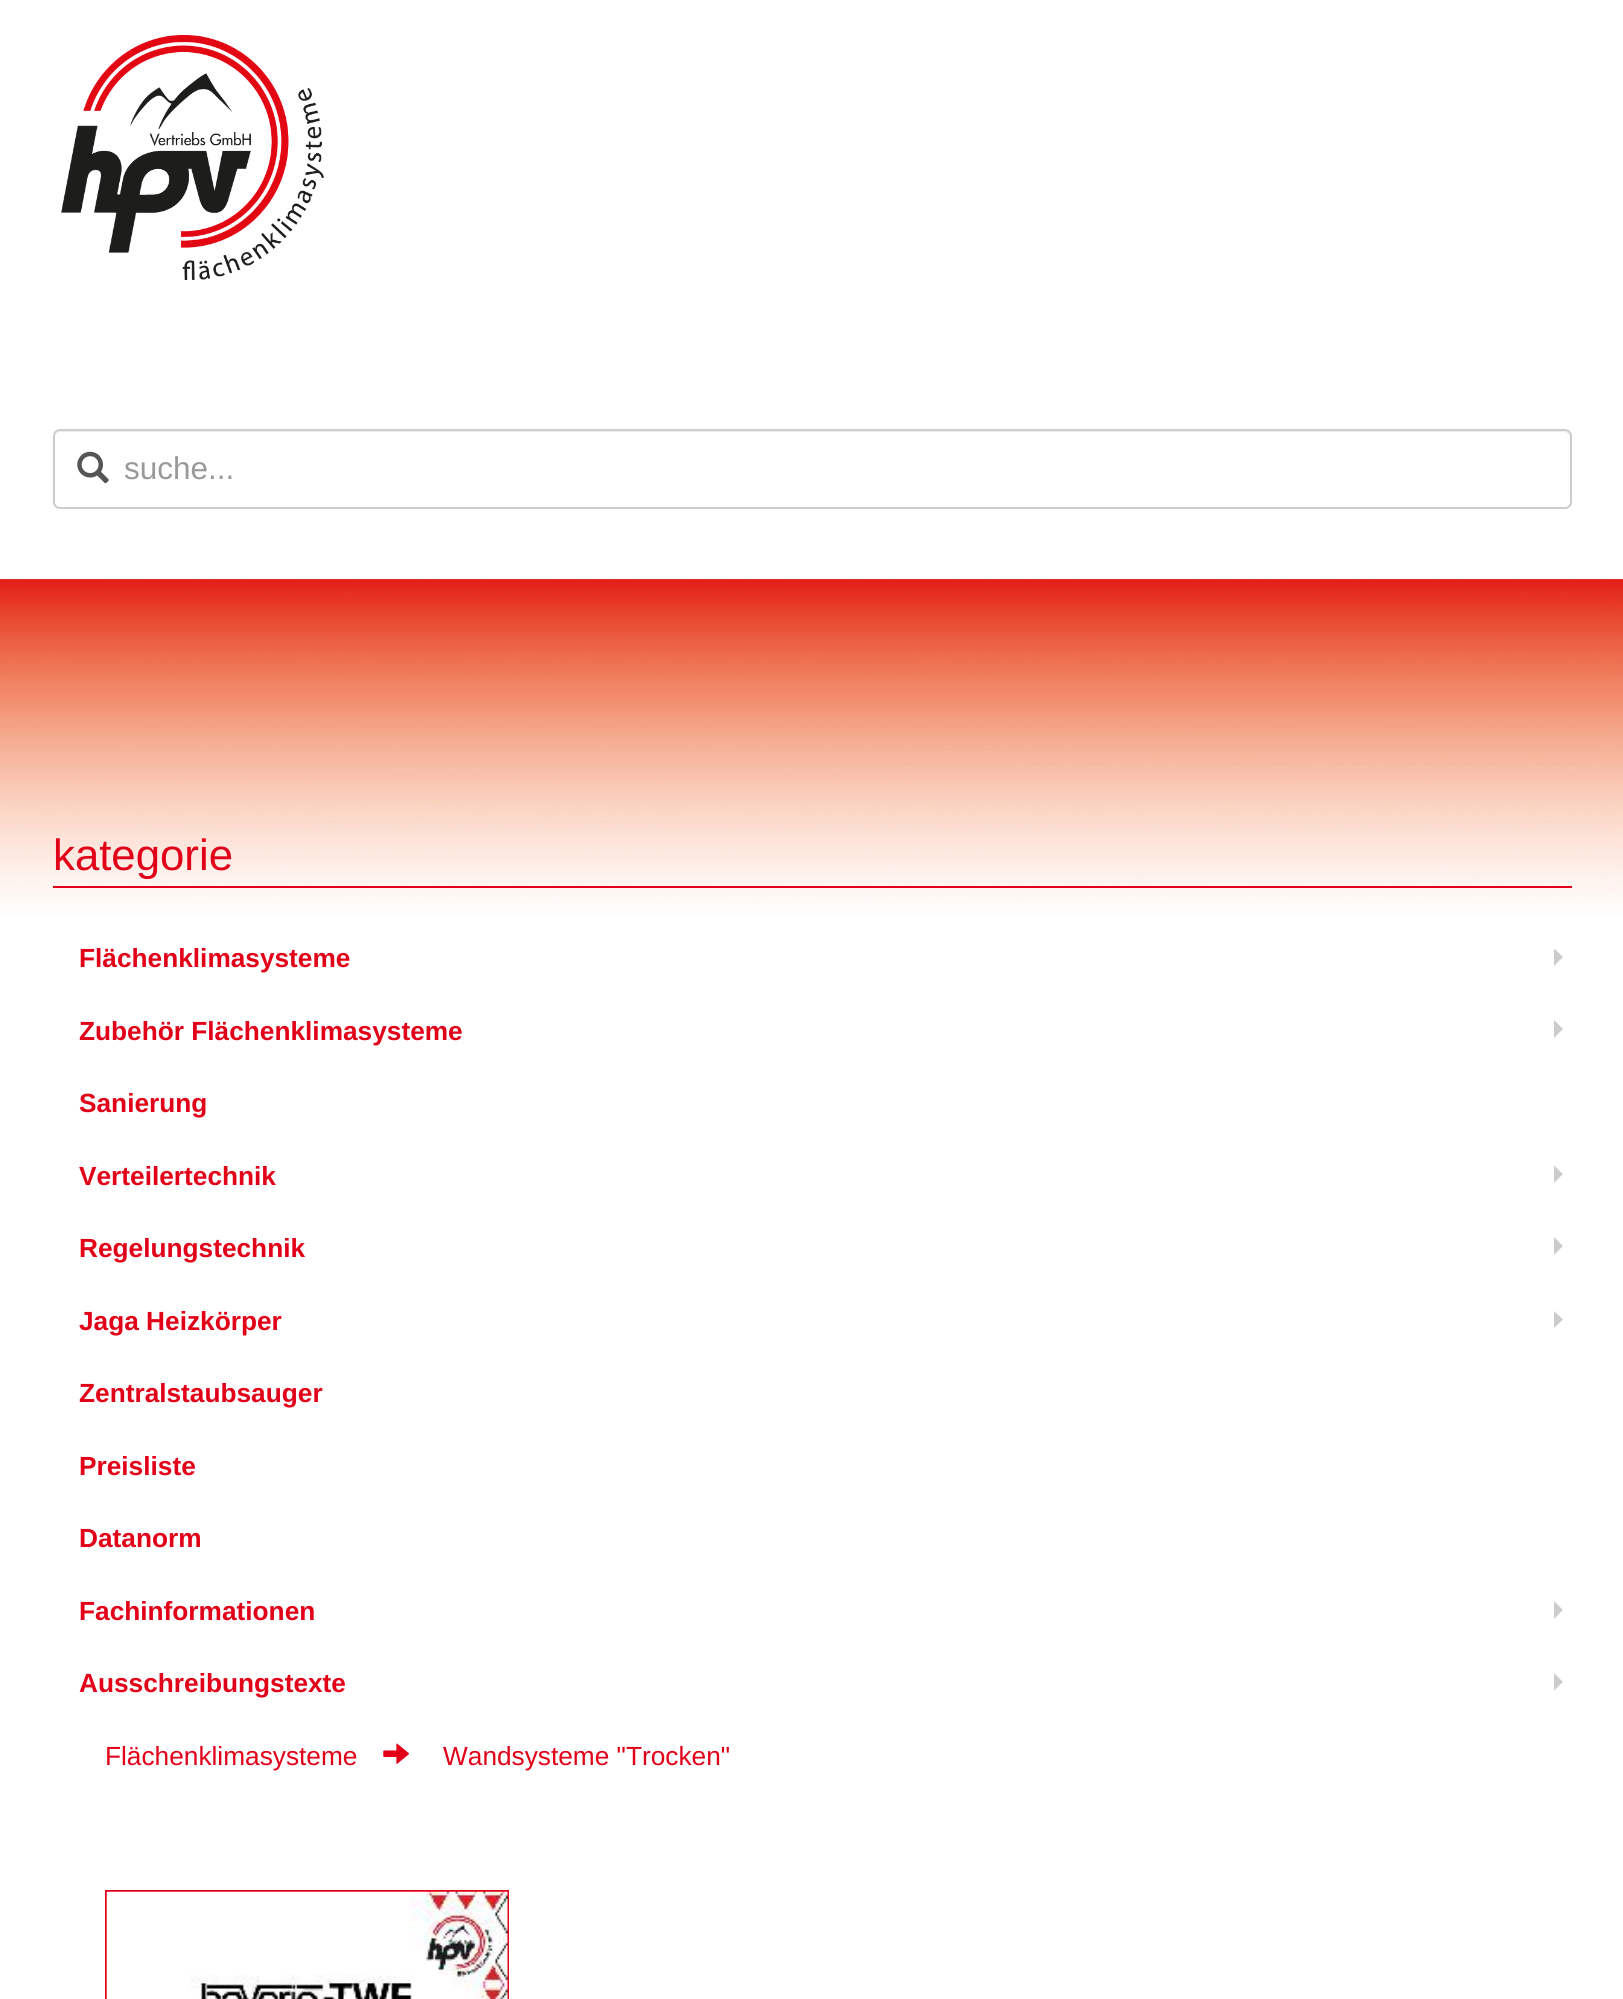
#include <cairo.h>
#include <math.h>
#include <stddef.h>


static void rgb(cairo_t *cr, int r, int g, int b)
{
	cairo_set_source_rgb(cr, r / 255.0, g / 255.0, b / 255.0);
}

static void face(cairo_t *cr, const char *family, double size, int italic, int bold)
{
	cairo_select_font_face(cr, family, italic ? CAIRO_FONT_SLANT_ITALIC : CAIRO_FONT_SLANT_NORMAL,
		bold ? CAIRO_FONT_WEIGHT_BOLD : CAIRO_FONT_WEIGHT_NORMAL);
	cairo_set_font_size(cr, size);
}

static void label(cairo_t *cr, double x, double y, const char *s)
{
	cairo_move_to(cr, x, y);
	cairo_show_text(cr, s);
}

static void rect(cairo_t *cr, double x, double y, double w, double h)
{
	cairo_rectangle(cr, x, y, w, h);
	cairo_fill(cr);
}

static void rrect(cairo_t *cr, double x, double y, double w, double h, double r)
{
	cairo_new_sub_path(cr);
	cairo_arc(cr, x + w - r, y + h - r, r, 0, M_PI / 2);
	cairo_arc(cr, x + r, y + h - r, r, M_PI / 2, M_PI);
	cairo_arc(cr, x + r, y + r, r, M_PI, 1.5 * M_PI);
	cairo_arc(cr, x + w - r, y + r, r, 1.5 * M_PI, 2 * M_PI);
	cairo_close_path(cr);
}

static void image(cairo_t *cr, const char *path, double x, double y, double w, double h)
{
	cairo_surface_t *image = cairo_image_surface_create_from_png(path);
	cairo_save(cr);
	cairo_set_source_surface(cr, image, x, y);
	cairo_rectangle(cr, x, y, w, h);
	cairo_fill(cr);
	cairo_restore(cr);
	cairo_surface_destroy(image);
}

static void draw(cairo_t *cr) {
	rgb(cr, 255, 255, 255);
	cairo_paint(cr);
	image(cr, "image0.png", 61, 35, 263, 245);
	rgb(cr, 236, 236, 236);
	cairo_new_path(cr);
	cairo_move_to(cr, 60, 432);
	cairo_line_to(cr, 1564, 432);
	cairo_curve_to(cr, 1567, 432, 1570, 435, 1570, 438);
	cairo_curve_to(cr, 1570, 435, 1569, 431, 1565, 431);
	cairo_line_to(cr, 59, 431);
	cairo_curve_to(cr, 55, 431, 54, 435, 54, 438);
	cairo_curve_to(cr, 54, 435, 57, 432, 60, 432);
	cairo_close_path(cr);
	cairo_fill(cr);
	rrect(cr, 54, 430, 1517, 78, 6);
	rgb(cr, 204, 204, 204);
	cairo_stroke(cr);
	image(cr, "image1.png", 77, 451, 32, 33);
	face(cr, "Liberation Sans", 31.5, 0, 0);
	rgb(cr, 153, 153, 153);
	label(cr, 124, 479, "suche...");
	image(cr, "image2.png", 0, 579, 1623, 1);
	image(cr, "image3.png", 0, 579, 1623, 336);
	face(cr, "Liberation Sans", 43.75, 0, 0);
	rgb(cr, 226, 0, 25);
	label(cr, 53, 870, "kategorie");
	rect(cr, 53, 886, 1519, 2);
	face(cr, "Liberation Sans", 26.25, 0, 1);
	label(cr, 79, 967, "Flächenklimasysteme");
	rgb(cr, 204, 204, 204);
	cairo_new_path(cr);
	cairo_move_to(cr, 1554, 966);
	cairo_line_to(cr, 1554, 948.5);
	cairo_line_to(cr, 1563, 957);
	cairo_close_path(cr);
	cairo_fill(cr);
	rgb(cr, 226, 0, 25);
	label(cr, 79, 1040, "Zubehör Flächenklimasysteme");
	rgb(cr, 204, 204, 204);
	cairo_new_path(cr);
	cairo_move_to(cr, 1554, 1038);
	cairo_line_to(cr, 1554, 1020);
	cairo_line_to(cr, 1563, 1029);
	cairo_close_path(cr);
	cairo_fill(cr);
	rgb(cr, 226, 0, 25);
	label(cr, 79, 1112, "Sanierung");
	label(cr, 79, 1185, "Verteilertechnik");
	rgb(cr, 204, 204, 204);
	cairo_new_path(cr);
	cairo_move_to(cr, 1554, 1183);
	cairo_line_to(cr, 1554, 1165.5);
	cairo_line_to(cr, 1563, 1174);
	cairo_close_path(cr);
	cairo_fill(cr);
	rgb(cr, 226, 0, 25);
	label(cr, 79, 1257, "Regelungstechnik");
	rgb(cr, 204, 204, 204);
	cairo_new_path(cr);
	cairo_move_to(cr, 1554, 1255);
	cairo_line_to(cr, 1554, 1237);
	cairo_line_to(cr, 1563, 1246);
	cairo_close_path(cr);
	cairo_fill(cr);
	rgb(cr, 226, 0, 25);
	label(cr, 79, 1330, "Jaga Heizkörper");
	rgb(cr, 204, 204, 204);
	cairo_new_path(cr);
	cairo_move_to(cr, 1554, 1328);
	cairo_line_to(cr, 1554, 1311);
	cairo_line_to(cr, 1563, 1319.5);
	cairo_close_path(cr);
	cairo_fill(cr);
	rgb(cr, 226, 0, 25);
	label(cr, 79, 1402, "Zentralstaubsauger");
	label(cr, 79, 1475, "Preisliste");
	label(cr, 79, 1547, "Datanorm");
	label(cr, 79, 1620, "Fachinformationen");
	rgb(cr, 204, 204, 204);
	cairo_new_path(cr);
	cairo_move_to(cr, 1554, 1619);
	cairo_line_to(cr, 1554, 1601);
	cairo_line_to(cr, 1563, 1610);
	cairo_close_path(cr);
	cairo_fill(cr);
	rgb(cr, 226, 0, 25);
	label(cr, 79, 1692, "Ausschreibungstexte");
	rgb(cr, 204, 204, 204);
	cairo_new_path(cr);
	cairo_move_to(cr, 1554, 1690.5);
	cairo_line_to(cr, 1554, 1673);
	cairo_line_to(cr, 1563, 1682);
	cairo_close_path(cr);
	cairo_fill(cr);
	face(cr, "Liberation Sans", 26.25, 0, 0);
	rgb(cr, 226, 0, 25);
	label(cr, 105, 1765, "Flächenklimasysteme");
	image(cr, "image4.png", 383, 1743, 26, 21);
	label(cr, 443, 1765, "Wandsysteme \"Trocken\"");
	cairo_rectangle(cr, 106, 1891, 402, 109);
	cairo_stroke(cr);
	image(cr, "image5.png", 106, 1891, 402, 108);
}

int main(void) {
	cairo_surface_t *surface = cairo_image_surface_create(CAIRO_FORMAT_RGB24, 1623, 1999);
	cairo_t *cr = cairo_create(surface);
	cairo_font_options_t *options = cairo_font_options_create();
	cairo_font_options_set_hint_metrics(options, CAIRO_HINT_METRICS_OFF);
	cairo_font_options_set_hint_style(options, CAIRO_HINT_STYLE_NONE);
	cairo_set_font_options(cr, options);
	cairo_set_miter_limit(cr, 4);
	draw(cr);
	cairo_surface_write_to_png(surface, "render.png");
	cairo_font_options_destroy(options);
	cairo_destroy(cr);
	cairo_surface_destroy(surface);
	return 0;
}
